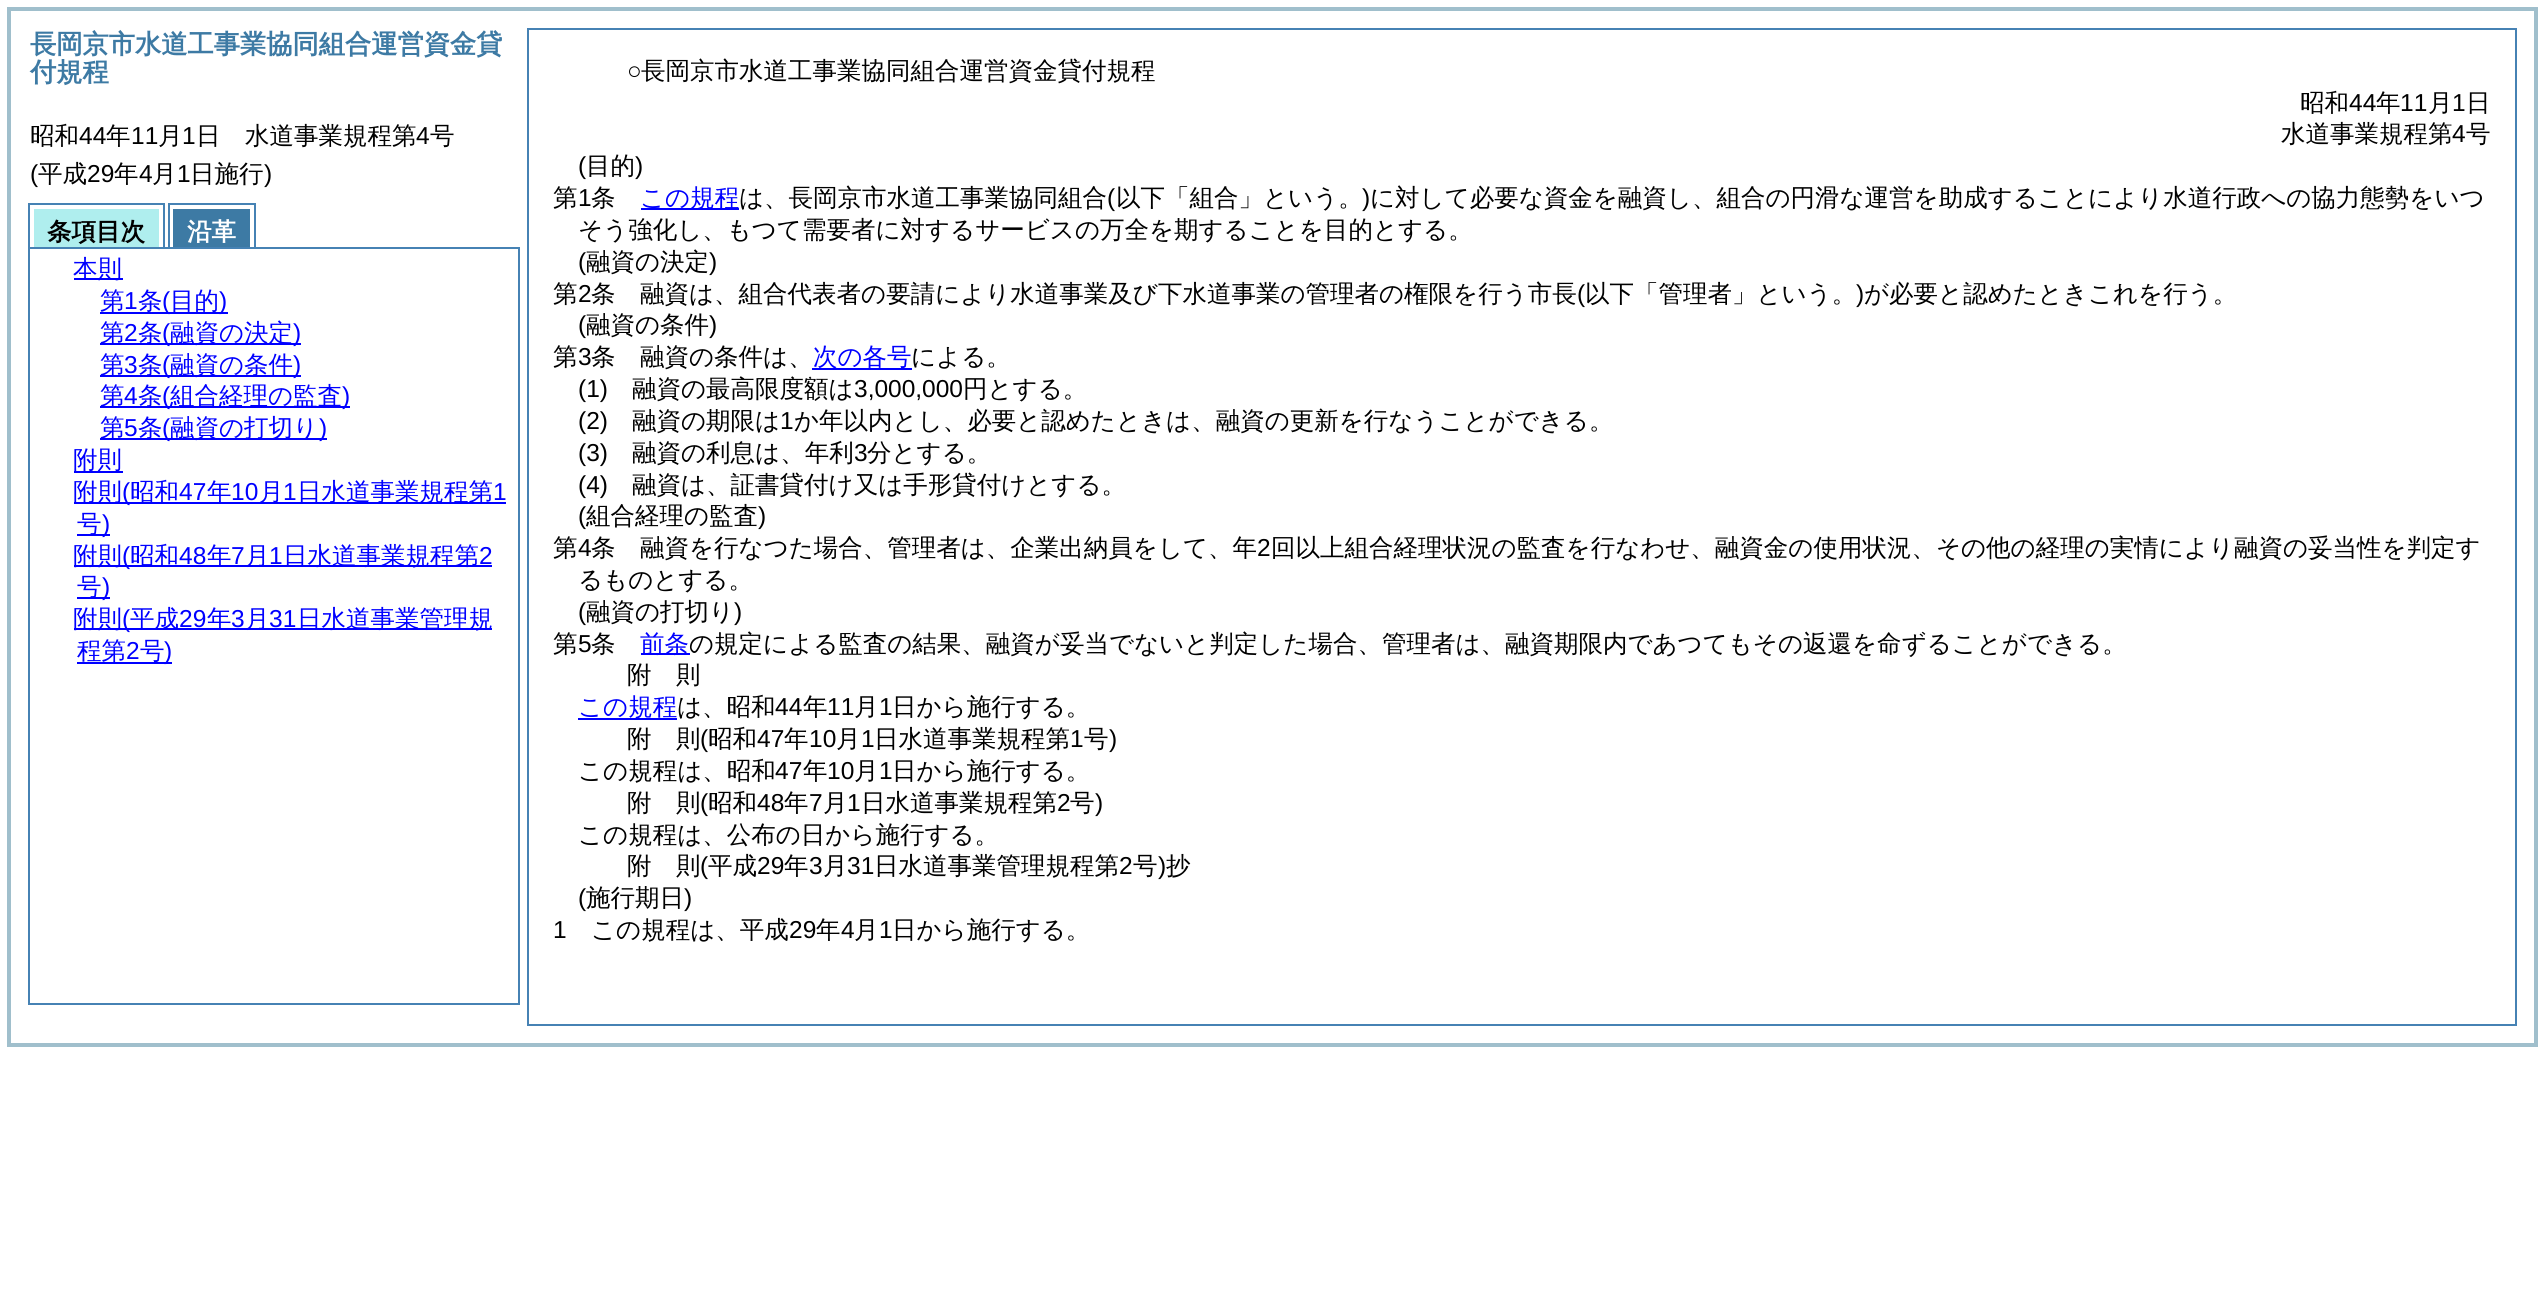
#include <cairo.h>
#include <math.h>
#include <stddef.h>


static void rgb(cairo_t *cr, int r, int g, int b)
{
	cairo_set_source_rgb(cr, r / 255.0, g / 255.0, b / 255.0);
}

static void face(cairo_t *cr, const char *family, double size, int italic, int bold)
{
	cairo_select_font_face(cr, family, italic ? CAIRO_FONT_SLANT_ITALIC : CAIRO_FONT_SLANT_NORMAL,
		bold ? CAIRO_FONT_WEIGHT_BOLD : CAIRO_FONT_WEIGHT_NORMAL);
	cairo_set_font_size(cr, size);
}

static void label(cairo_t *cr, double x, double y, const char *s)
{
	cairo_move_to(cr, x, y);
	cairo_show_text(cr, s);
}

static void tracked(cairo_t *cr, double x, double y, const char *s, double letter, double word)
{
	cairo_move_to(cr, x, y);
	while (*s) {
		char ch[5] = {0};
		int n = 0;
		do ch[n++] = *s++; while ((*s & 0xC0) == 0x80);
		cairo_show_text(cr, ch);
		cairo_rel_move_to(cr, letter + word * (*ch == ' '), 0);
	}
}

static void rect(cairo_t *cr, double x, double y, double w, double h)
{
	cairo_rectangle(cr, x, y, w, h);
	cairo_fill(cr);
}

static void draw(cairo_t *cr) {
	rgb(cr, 255, 255, 255);
	cairo_paint(cr);
	cairo_rectangle(cr, 9, 9, 2527, 1036);
	rgb(cr, 160, 191, 204);
	cairo_set_line_width(cr, 4);
	cairo_stroke(cr);
	face(cr, "WenQuanYi Zen Hei", 26.25, 0, 1);
	rgb(cr, 61, 122, 164);
	label(cr, 30, 53, "長岡京市水道工事業協同組合運営資金貸");
	label(cr, 30, 81, "付規程");
	face(cr, "WenQuanYi Zen Hei Medium", 24.5, 0, 0);
	rgb(cr, 0, 0, 0);
	label(cr, 30, 144, "昭和");
	face(cr, "Liberation Sans", 24.5, 0, 0);
	label(cr, 79, 144, "44");
	face(cr, "WenQuanYi Zen Hei Medium", 24.5, 0, 0);
	label(cr, 106, 144, "年");
	face(cr, "Liberation Sans", 24.5, 0, 0);
	label(cr, 131, 144, "11");
	face(cr, "WenQuanYi Zen Hei Medium", 24.5, 0, 0);
	label(cr, 158, 144, "月");
	face(cr, "Liberation Sans", 24.5, 0, 0);
	label(cr, 182, 144, "1");
	face(cr, "WenQuanYi Zen Hei Medium", 24.5, 0, 0);
	label(cr, 196, 144, "日　水道事業規程第");
	face(cr, "Liberation Sans", 24.5, 0, 0);
	label(cr, 416, 144, "4");
	face(cr, "WenQuanYi Zen Hei Medium", 24.5, 0, 0);
	label(cr, 430, 144, "号");
	face(cr, "Liberation Sans", 24.5, 0, 0);
	label(cr, 30, 182, "(");
	face(cr, "WenQuanYi Zen Hei Medium", 24.5, 0, 0);
	label(cr, 38, 182, "平成");
	face(cr, "Liberation Sans", 24.5, 0, 0);
	label(cr, 87, 182, "29");
	face(cr, "WenQuanYi Zen Hei Medium", 24.5, 0, 0);
	label(cr, 114, 182, "年");
	face(cr, "Liberation Sans", 24.5, 0, 0);
	label(cr, 139, 182, "4");
	face(cr, "WenQuanYi Zen Hei Medium", 24.5, 0, 0);
	label(cr, 152, 182, "月");
	face(cr, "Liberation Sans", 24.5, 0, 0);
	label(cr, 177, 182, "1");
	face(cr, "WenQuanYi Zen Hei Medium", 24.5, 0, 0);
	label(cr, 190, 182, "日施行");
	face(cr, "Liberation Sans", 24.5, 0, 0);
	label(cr, 264, 182, ")");
	rgb(cr, 70, 130, 180);
	rect(cr, 28, 203, 137, 2);
	rect(cr, 163, 203, 2, 46);
	rect(cr, 28, 203, 2, 46);
	rgb(cr, 175, 238, 238);
	rect(cr, 34, 209, 125, 38);
	face(cr, "WenQuanYi Zen Hei", 24.5, 0, 1);
	rgb(cr, 0, 0, 0);
	label(cr, 47, 240, "条項目次");
	rgb(cr, 70, 130, 180);
	rect(cr, 168, 203, 88, 2);
	rect(cr, 254, 203, 2, 46);
	rect(cr, 168, 203, 2, 46);
	rgb(cr, 61, 122, 164);
	rect(cr, 173, 209, 77, 38);
	rgb(cr, 255, 255, 255);
	label(cr, 187, 240, "沿革");
	cairo_rectangle(cr, 29, 248, 490, 756);
	rgb(cr, 70, 130, 180);
	cairo_set_line_width(cr, 2);
	cairo_stroke(cr);
	rgb(cr, 0, 0, 255);
	rect(cr, 74, 278, 49, 2);
	face(cr, "WenQuanYi Zen Hei Medium", 24.5, 0, 0);
	label(cr, 73, 277, "本則");
	rect(cr, 100, 312, 128, 2);
	label(cr, 100, 309, "第");
	face(cr, "Liberation Sans", 24.5, 0, 0);
	label(cr, 124, 309, "1");
	face(cr, "WenQuanYi Zen Hei Medium", 24.5, 0, 0);
	label(cr, 138, 309, "条");
	face(cr, "Liberation Sans", 24.5, 0, 0);
	label(cr, 162, 309, "(");
	face(cr, "WenQuanYi Zen Hei Medium", 24.5, 0, 0);
	label(cr, 170, 309, "目的");
	face(cr, "Liberation Sans", 24.5, 0, 0);
	label(cr, 219, 309, ")");
	rect(cr, 100, 343, 201, 2);
	face(cr, "WenQuanYi Zen Hei Medium", 24.5, 0, 0);
	label(cr, 100, 341, "第");
	face(cr, "Liberation Sans", 24.5, 0, 0);
	label(cr, 124, 341, "2");
	face(cr, "WenQuanYi Zen Hei Medium", 24.5, 0, 0);
	label(cr, 138, 341, "条");
	face(cr, "Liberation Sans", 24.5, 0, 0);
	label(cr, 162, 341, "(");
	face(cr, "WenQuanYi Zen Hei Medium", 24.5, 0, 0);
	label(cr, 170, 341, "融資の決定");
	face(cr, "Liberation Sans", 24.5, 0, 0);
	label(cr, 293, 341, ")");
	rect(cr, 100, 375, 201, 2);
	face(cr, "WenQuanYi Zen Hei Medium", 24.5, 0, 0);
	label(cr, 100, 373, "第");
	face(cr, "Liberation Sans", 24.5, 0, 0);
	label(cr, 124, 373, "3");
	face(cr, "WenQuanYi Zen Hei Medium", 24.5, 0, 0);
	label(cr, 138, 373, "条");
	face(cr, "Liberation Sans", 24.5, 0, 0);
	label(cr, 162, 373, "(");
	face(cr, "WenQuanYi Zen Hei Medium", 24.5, 0, 0);
	label(cr, 170, 373, "融資の条件");
	face(cr, "Liberation Sans", 24.5, 0, 0);
	label(cr, 293, 373, ")");
	rect(cr, 100, 406, 250, 2);
	face(cr, "WenQuanYi Zen Hei Medium", 24.5, 0, 0);
	label(cr, 100, 404, "第");
	face(cr, "Liberation Sans", 24.5, 0, 0);
	label(cr, 124, 404, "4");
	face(cr, "WenQuanYi Zen Hei Medium", 24.5, 0, 0);
	label(cr, 138, 404, "条");
	face(cr, "Liberation Sans", 24.5, 0, 0);
	label(cr, 162, 404, "(");
	face(cr, "WenQuanYi Zen Hei Medium", 24.5, 0, 0);
	label(cr, 170, 404, "組合経理の監査");
	face(cr, "Liberation Sans", 24.5, 0, 0);
	label(cr, 342, 404, ")");
	rect(cr, 100, 438, 227, 2);
	face(cr, "WenQuanYi Zen Hei Medium", 24.5, 0, 0);
	label(cr, 100, 436, "第");
	face(cr, "Liberation Sans", 24.5, 0, 0);
	label(cr, 124, 436, "5");
	face(cr, "WenQuanYi Zen Hei Medium", 24.5, 0, 0);
	label(cr, 138, 436, "条");
	face(cr, "Liberation Sans", 24.5, 0, 0);
	label(cr, 162, 436, "(");
	face(cr, "WenQuanYi Zen Hei Medium", 24.5, 0, 0);
	label(cr, 170, 436, "融資の打切り");
	face(cr, "Liberation Sans", 24.5, 0, 0);
	label(cr, 319, 436, ")");
	rect(cr, 74, 471, 49, 2);
	face(cr, "WenQuanYi Zen Hei Medium", 24.5, 0, 0);
	label(cr, 73, 468, "附則");
	rect(cr, 74, 502, 432, 2);
	label(cr, 73, 500, "附則");
	face(cr, "Liberation Sans", 24.5, 0, 0);
	label(cr, 122, 500, "(");
	face(cr, "WenQuanYi Zen Hei Medium", 24.5, 0, 0);
	label(cr, 130, 500, "昭和");
	face(cr, "Liberation Sans", 24.5, 0, 0);
	label(cr, 179, 500, "47");
	face(cr, "WenQuanYi Zen Hei Medium", 24.5, 0, 0);
	label(cr, 207, 500, "年");
	face(cr, "Liberation Sans", 24.5, 0, 0);
	label(cr, 231, 500, "10");
	face(cr, "WenQuanYi Zen Hei Medium", 24.5, 0, 0);
	label(cr, 259, 500, "月");
	face(cr, "Liberation Sans", 24.5, 0, 0);
	label(cr, 283, 500, "1");
	face(cr, "WenQuanYi Zen Hei Medium", 24.5, 0, 0);
	label(cr, 297, 500, "日水道事業規程第");
	face(cr, "Liberation Sans", 24.5, 0, 0);
	label(cr, 493, 500, "1");
	rect(cr, 77, 534, 33, 2);
	face(cr, "WenQuanYi Zen Hei Medium", 24.5, 0, 0);
	label(cr, 77, 532, "号");
	face(cr, "Liberation Sans", 24.5, 0, 0);
	label(cr, 102, 532, ")");
	rect(cr, 74, 565, 418, 2);
	face(cr, "WenQuanYi Zen Hei Medium", 24.5, 0, 0);
	label(cr, 73, 564, "附則");
	face(cr, "Liberation Sans", 24.5, 0, 0);
	label(cr, 122, 564, "(");
	face(cr, "WenQuanYi Zen Hei Medium", 24.5, 0, 0);
	label(cr, 130, 564, "昭和");
	face(cr, "Liberation Sans", 24.5, 0, 0);
	label(cr, 179, 564, "48");
	face(cr, "WenQuanYi Zen Hei Medium", 24.5, 0, 0);
	label(cr, 207, 564, "年");
	face(cr, "Liberation Sans", 24.5, 0, 0);
	label(cr, 231, 564, "7");
	face(cr, "WenQuanYi Zen Hei Medium", 24.5, 0, 0);
	label(cr, 245, 564, "月");
	face(cr, "Liberation Sans", 24.5, 0, 0);
	label(cr, 269, 564, "1");
	face(cr, "WenQuanYi Zen Hei Medium", 24.5, 0, 0);
	label(cr, 283, 564, "日水道事業規程第");
	face(cr, "Liberation Sans", 24.5, 0, 0);
	label(cr, 479, 564, "2");
	rect(cr, 77, 597, 33, 2);
	face(cr, "WenQuanYi Zen Hei Medium", 24.5, 0, 0);
	label(cr, 77, 595, "号");
	face(cr, "Liberation Sans", 24.5, 0, 0);
	label(cr, 102, 595, ")");
	rect(cr, 74, 628, 418, 2);
	face(cr, "WenQuanYi Zen Hei Medium", 24.5, 0, 0);
	label(cr, 73, 627, "附則");
	face(cr, "Liberation Sans", 24.5, 0, 0);
	label(cr, 122, 627, "(");
	face(cr, "WenQuanYi Zen Hei Medium", 24.5, 0, 0);
	label(cr, 130, 627, "平成");
	face(cr, "Liberation Sans", 24.5, 0, 0);
	label(cr, 179, 627, "29");
	face(cr, "WenQuanYi Zen Hei Medium", 24.5, 0, 0);
	label(cr, 207, 627, "年");
	face(cr, "Liberation Sans", 24.5, 0, 0);
	label(cr, 231, 627, "3");
	face(cr, "WenQuanYi Zen Hei Medium", 24.5, 0, 0);
	label(cr, 245, 627, "月");
	face(cr, "Liberation Sans", 24.5, 0, 0);
	label(cr, 269, 627, "31");
	face(cr, "WenQuanYi Zen Hei Medium", 24.5, 0, 0);
	label(cr, 297, 627, "日水道事業管理規");
	rect(cr, 77, 662, 95, 2);
	label(cr, 77, 659, "程第");
	face(cr, "Liberation Sans", 24.5, 0, 0);
	label(cr, 126, 659, "2");
	face(cr, "WenQuanYi Zen Hei Medium", 24.5, 0, 0);
	label(cr, 140, 659, "号");
	face(cr, "Liberation Sans", 24.5, 0, 0);
	label(cr, 164, 659, ")");
	cairo_rectangle(cr, 528, 29, 1988, 996);
	rgb(cr, 70, 130, 180);
	cairo_stroke(cr);
	rgb(cr, 0, 0, 0);
	label(cr, 627, 79, "○");
	face(cr, "WenQuanYi Zen Hei Medium", 24.5, 0, 0);
	label(cr, 641, 79, "長岡京市水道工事業協同組合運営資金貸付規程");
	label(cr, 2300, 111, "昭和");
	face(cr, "Liberation Sans", 24.5, 0, 0);
	label(cr, 2349, 111, "44");
	face(cr, "WenQuanYi Zen Hei Medium", 24.5, 0, 0);
	label(cr, 2376, 111, "年");
	face(cr, "Liberation Sans", 24.5, 0, 0);
	label(cr, 2400, 111, "11");
	face(cr, "WenQuanYi Zen Hei Medium", 24.5, 0, 0);
	label(cr, 2428, 111, "月");
	face(cr, "Liberation Sans", 24.5, 0, 0);
	label(cr, 2452, 111, "1");
	face(cr, "WenQuanYi Zen Hei Medium", 24.5, 0, 0);
	label(cr, 2466, 111, "日");
	label(cr, 2281, 142, "水道事業規程第");
	face(cr, "Liberation Sans", 24.5, 0, 0);
	label(cr, 2452, 142, "4");
	face(cr, "WenQuanYi Zen Hei Medium", 24.5, 0, 0);
	label(cr, 2466, 142, "号");
	face(cr, "Liberation Sans", 24.5, 0, 0);
	label(cr, 578, 174, "(");
	face(cr, "WenQuanYi Zen Hei Medium", 24.5, 0, 0);
	label(cr, 586, 174, "目的");
	face(cr, "Liberation Sans", 24.5, 0, 0);
	label(cr, 635, 174, ")");
	face(cr, "WenQuanYi Zen Hei Medium", 24.5, 0, 0);
	label(cr, 553, 206, "第");
	face(cr, "Liberation Sans", 24.5, 0, 0);
	label(cr, 578, 206, "1");
	face(cr, "WenQuanYi Zen Hei Medium", 24.5, 0, 0);
	label(cr, 591, 206, "条");
	rgb(cr, 0, 0, 255);
	rect(cr, 641, 208, 98, 2);
	label(cr, 640, 206, "この規程");
	rgb(cr, 0, 0, 0);
	label(cr, 739, 206, "は、長岡京市水道工事業協同組合");
	face(cr, "Liberation Sans", 24.5, 0, 0);
	label(cr, 1107, 206, "(");
	face(cr, "WenQuanYi Zen Hei Medium", 24.5, 0, 0);
	label(cr, 1116, 206, "以下「組合」という。");
	face(cr, "Liberation Sans", 24.5, 0, 0);
	label(cr, 1362, 206, ")");
	face(cr, "WenQuanYi Zen Hei Medium", 24.5, 0, 0);
	label(cr, 1370, 206, "に対して必要な資金を融資し、組合の円滑な運営を助成することにより水道行政への協力態勢をいつ");
	label(cr, 578, 238, "そう強化し、もつて需要者に対するサービスの万全を期することを目的とする。");
	face(cr, "Liberation Sans", 24.5, 0, 0);
	label(cr, 578, 270, "(");
	face(cr, "WenQuanYi Zen Hei Medium", 24.5, 0, 0);
	label(cr, 586, 270, "融資の決定");
	face(cr, "Liberation Sans", 24.5, 0, 0);
	label(cr, 709, 270, ")");
	face(cr, "WenQuanYi Zen Hei Medium", 24.5, 0, 0);
	label(cr, 553, 302, "第");
	face(cr, "Liberation Sans", 24.5, 0, 0);
	label(cr, 578, 302, "2");
	face(cr, "WenQuanYi Zen Hei Medium", 24.5, 0, 0);
	label(cr, 591, 302, "条");
	label(cr, 640, 302, "融資は、組合代表者の要請により水道事業及び下水道事業の管理者の権限を行う市長");
	face(cr, "Liberation Sans", 24.5, 0, 0);
	label(cr, 1577, 302, "(");
	face(cr, "WenQuanYi Zen Hei Medium", 24.5, 0, 0);
	label(cr, 1585, 302, "以下「管理者」という。");
	face(cr, "Liberation Sans", 24.5, 0, 0);
	label(cr, 1856, 302, ")");
	face(cr, "WenQuanYi Zen Hei Medium", 24.5, 0, 0);
	label(cr, 1864, 302, "が必要と認めたときこれを行う。");
	face(cr, "Liberation Sans", 24.5, 0, 0);
	label(cr, 578, 333, "(");
	face(cr, "WenQuanYi Zen Hei Medium", 24.5, 0, 0);
	label(cr, 586, 333, "融資の条件");
	face(cr, "Liberation Sans", 24.5, 0, 0);
	label(cr, 709, 333, ")");
	face(cr, "WenQuanYi Zen Hei Medium", 24.5, 0, 0);
	label(cr, 553, 365, "第");
	face(cr, "Liberation Sans", 24.5, 0, 0);
	label(cr, 578, 365, "3");
	face(cr, "WenQuanYi Zen Hei Medium", 24.5, 0, 0);
	label(cr, 591, 365, "条");
	label(cr, 640, 365, "融資の条件は、");
	rgb(cr, 0, 0, 255);
	rect(cr, 812, 368, 100, 2);
	label(cr, 813, 365, "次の各号");
	rgb(cr, 0, 0, 0);
	label(cr, 911, 365, "による。");
	face(cr, "Liberation Sans", 24.5, 0, 0);
	label(cr, 578, 397, "(1)");
	face(cr, "WenQuanYi Zen Hei Medium", 24.5, 0, 0);
	label(cr, 632, 397, "融資の最高限度額は");
	face(cr, "Liberation Sans", 24.5, 0, 0);
	label(cr, 854, 397, "3,000,000");
	face(cr, "WenQuanYi Zen Hei Medium", 24.5, 0, 0);
	label(cr, 963, 397, "円とする。");
	face(cr, "Liberation Sans", 24.5, 0, 0);
	label(cr, 578, 429, "(2)");
	face(cr, "WenQuanYi Zen Hei Medium", 24.5, 0, 0);
	label(cr, 632, 429, "融資の期限は");
	face(cr, "Liberation Sans", 24.5, 0, 0);
	label(cr, 780, 429, "1");
	face(cr, "WenQuanYi Zen Hei Medium", 24.5, 0, 0);
	label(cr, 794, 429, "か年以内とし、必要と認めたときは、融資の更新を行なうことができる。");
	face(cr, "Liberation Sans", 24.5, 0, 0);
	label(cr, 578, 461, "(3)");
	face(cr, "WenQuanYi Zen Hei Medium", 24.5, 0, 0);
	label(cr, 632, 461, "融資の利息は、年利");
	face(cr, "Liberation Sans", 24.5, 0, 0);
	label(cr, 854, 461, "3");
	face(cr, "WenQuanYi Zen Hei Medium", 24.5, 0, 0);
	label(cr, 867, 461, "分とする。");
	face(cr, "Liberation Sans", 24.5, 0, 0);
	label(cr, 578, 493, "(4)");
	face(cr, "WenQuanYi Zen Hei Medium", 24.5, 0, 0);
	label(cr, 632, 493, "融資は、証書貸付け又は手形貸付けとする。");
	face(cr, "Liberation Sans", 24.5, 0, 0);
	label(cr, 578, 524, "(");
	face(cr, "WenQuanYi Zen Hei Medium", 24.5, 0, 0);
	label(cr, 586, 524, "組合経理の監査");
	face(cr, "Liberation Sans", 24.5, 0, 0);
	label(cr, 758, 524, ")");
	face(cr, "WenQuanYi Zen Hei Medium", 24.5, 0, 0);
	label(cr, 553, 556, "第");
	face(cr, "Liberation Sans", 24.5, 0, 0);
	label(cr, 578, 556, "4");
	face(cr, "WenQuanYi Zen Hei Medium", 24.5, 0, 0);
	label(cr, 591, 556, "条");
	label(cr, 640, 556, "融資を行なつた場合、管理者は、企業出納員をして、年");
	face(cr, "Liberation Sans", 24.5, 0, 0);
	label(cr, 1257, 556, "2");
	face(cr, "WenQuanYi Zen Hei Medium", 24.5, 0, 0);
	label(cr, 1271, 556, "回以上組合経理状況の監査を行なわせ、融資金の使用状況、その他の経理の実情により融資の妥当性を判定す");
	label(cr, 578, 588, "るものとする。");
	face(cr, "Liberation Sans", 24.5, 0, 0);
	label(cr, 578, 620, "(");
	face(cr, "WenQuanYi Zen Hei Medium", 24.5, 0, 0);
	label(cr, 586, 620, "融資の打切り");
	face(cr, "Liberation Sans", 24.5, 0, 0);
	label(cr, 734, 620, ")");
	face(cr, "WenQuanYi Zen Hei Medium", 24.5, 0, 0);
	label(cr, 553, 652, "第");
	face(cr, "Liberation Sans", 24.5, 0, 0);
	label(cr, 578, 652, "5");
	face(cr, "WenQuanYi Zen Hei Medium", 24.5, 0, 0);
	label(cr, 591, 652, "条");
	rgb(cr, 0, 0, 255);
	rect(cr, 641, 653, 49, 2);
	label(cr, 640, 652, "前条");
	rgb(cr, 0, 0, 0);
	label(cr, 689, 652, "の規定による監査の結果、融資が妥当でないと判定した場合、管理者は、融資期限内であつてもその返還を命ずることができる。");
	tracked(cr, 627, 683, "附", 25, 0);
	label(cr, 676, 683, "則");
	rgb(cr, 0, 0, 255);
	rect(cr, 578, 718, 99, 2);
	label(cr, 578, 715, "この規程");
	rgb(cr, 0, 0, 0);
	label(cr, 677, 715, "は、昭和");
	face(cr, "Liberation Sans", 24.5, 0, 0);
	label(cr, 775, 715, "44");
	face(cr, "WenQuanYi Zen Hei Medium", 24.5, 0, 0);
	label(cr, 803, 715, "年");
	face(cr, "Liberation Sans", 24.5, 0, 0);
	label(cr, 827, 715, "11");
	face(cr, "WenQuanYi Zen Hei Medium", 24.5, 0, 0);
	label(cr, 854, 715, "月");
	face(cr, "Liberation Sans", 24.5, 0, 0);
	label(cr, 879, 715, "1");
	face(cr, "WenQuanYi Zen Hei Medium", 24.5, 0, 0);
	label(cr, 892, 715, "日から施行する。");
	tracked(cr, 627, 747, "附", 25, 0);
	label(cr, 676, 747, "則");
	face(cr, "Liberation Sans", 24.5, 0, 0);
	label(cr, 700, 747, "(");
	face(cr, "WenQuanYi Zen Hei Medium", 24.5, 0, 0);
	label(cr, 708, 747, "昭和");
	face(cr, "Liberation Sans", 24.5, 0, 0);
	label(cr, 757, 747, "47");
	face(cr, "WenQuanYi Zen Hei Medium", 24.5, 0, 0);
	label(cr, 784, 747, "年");
	face(cr, "Liberation Sans", 24.5, 0, 0);
	label(cr, 809, 747, "10");
	face(cr, "WenQuanYi Zen Hei Medium", 24.5, 0, 0);
	label(cr, 836, 747, "月");
	face(cr, "Liberation Sans", 24.5, 0, 0);
	label(cr, 861, 747, "1");
	face(cr, "WenQuanYi Zen Hei Medium", 24.5, 0, 0);
	label(cr, 874, 747, "日水道事業規程第");
	face(cr, "Liberation Sans", 24.5, 0, 0);
	label(cr, 1070, 747, "1");
	face(cr, "WenQuanYi Zen Hei Medium", 24.5, 0, 0);
	label(cr, 1084, 747, "号");
	face(cr, "Liberation Sans", 24.5, 0, 0);
	label(cr, 1109, 747, ")");
	face(cr, "WenQuanYi Zen Hei Medium", 24.5, 0, 0);
	label(cr, 578, 779, "この規程は、昭和");
	face(cr, "Liberation Sans", 24.5, 0, 0);
	label(cr, 775, 779, "47");
	face(cr, "WenQuanYi Zen Hei Medium", 24.5, 0, 0);
	label(cr, 803, 779, "年");
	face(cr, "Liberation Sans", 24.5, 0, 0);
	label(cr, 827, 779, "10");
	face(cr, "WenQuanYi Zen Hei Medium", 24.5, 0, 0);
	label(cr, 854, 779, "月");
	face(cr, "Liberation Sans", 24.5, 0, 0);
	label(cr, 879, 779, "1");
	face(cr, "WenQuanYi Zen Hei Medium", 24.5, 0, 0);
	label(cr, 892, 779, "日から施行する。");
	tracked(cr, 627, 811, "附", 25, 0);
	label(cr, 676, 811, "則");
	face(cr, "Liberation Sans", 24.5, 0, 0);
	label(cr, 700, 811, "(");
	face(cr, "WenQuanYi Zen Hei Medium", 24.5, 0, 0);
	label(cr, 708, 811, "昭和");
	face(cr, "Liberation Sans", 24.5, 0, 0);
	label(cr, 757, 811, "48");
	face(cr, "WenQuanYi Zen Hei Medium", 24.5, 0, 0);
	label(cr, 784, 811, "年");
	face(cr, "Liberation Sans", 24.5, 0, 0);
	label(cr, 809, 811, "7");
	face(cr, "WenQuanYi Zen Hei Medium", 24.5, 0, 0);
	label(cr, 823, 811, "月");
	face(cr, "Liberation Sans", 24.5, 0, 0);
	label(cr, 847, 811, "1");
	face(cr, "WenQuanYi Zen Hei Medium", 24.5, 0, 0);
	label(cr, 861, 811, "日水道事業規程第");
	face(cr, "Liberation Sans", 24.5, 0, 0);
	label(cr, 1057, 811, "2");
	face(cr, "WenQuanYi Zen Hei Medium", 24.5, 0, 0);
	label(cr, 1070, 811, "号");
	face(cr, "Liberation Sans", 24.5, 0, 0);
	label(cr, 1095, 811, ")");
	face(cr, "WenQuanYi Zen Hei Medium", 24.5, 0, 0);
	label(cr, 578, 843, "この規程は、公布の日から施行する。");
	tracked(cr, 627, 874, "附", 25, 0);
	label(cr, 676, 874, "則");
	face(cr, "Liberation Sans", 24.5, 0, 0);
	label(cr, 700, 874, "(");
	face(cr, "WenQuanYi Zen Hei Medium", 24.5, 0, 0);
	label(cr, 708, 874, "平成");
	face(cr, "Liberation Sans", 24.5, 0, 0);
	label(cr, 757, 874, "29");
	face(cr, "WenQuanYi Zen Hei Medium", 24.5, 0, 0);
	label(cr, 784, 874, "年");
	face(cr, "Liberation Sans", 24.5, 0, 0);
	label(cr, 809, 874, "3");
	face(cr, "WenQuanYi Zen Hei Medium", 24.5, 0, 0);
	label(cr, 823, 874, "月");
	face(cr, "Liberation Sans", 24.5, 0, 0);
	label(cr, 847, 874, "31");
	face(cr, "WenQuanYi Zen Hei Medium", 24.5, 0, 0);
	label(cr, 874, 874, "日水道事業管理規程第");
	face(cr, "Liberation Sans", 24.5, 0, 0);
	label(cr, 1119, 874, "2");
	face(cr, "WenQuanYi Zen Hei Medium", 24.5, 0, 0);
	label(cr, 1133, 874, "号");
	face(cr, "Liberation Sans", 24.5, 0, 0);
	label(cr, 1158, 874, ")");
	face(cr, "WenQuanYi Zen Hei Medium", 24.5, 0, 0);
	label(cr, 1166, 874, "抄");
	face(cr, "Liberation Sans", 24.5, 0, 0);
	label(cr, 578, 906, "(");
	face(cr, "WenQuanYi Zen Hei Medium", 24.5, 0, 0);
	label(cr, 586, 906, "施行期日");
	face(cr, "Liberation Sans", 24.5, 0, 0);
	label(cr, 684, 906, ")");
	label(cr, 553, 938, "1");
	face(cr, "WenQuanYi Zen Hei Medium", 24.5, 0, 0);
	label(cr, 591, 938, "この規程は、平成");
	face(cr, "Liberation Sans", 24.5, 0, 0);
	label(cr, 789, 938, "29");
	face(cr, "WenQuanYi Zen Hei Medium", 24.5, 0, 0);
	label(cr, 816, 938, "年");
	face(cr, "Liberation Sans", 24.5, 0, 0);
	label(cr, 841, 938, "4");
	face(cr, "WenQuanYi Zen Hei Medium", 24.5, 0, 0);
	label(cr, 854, 938, "月");
	face(cr, "Liberation Sans", 24.5, 0, 0);
	label(cr, 879, 938, "1");
	face(cr, "WenQuanYi Zen Hei Medium", 24.5, 0, 0);
	label(cr, 892, 938, "日から施行する。");
}

int main(void) {
	cairo_surface_t *surface = cairo_image_surface_create(CAIRO_FORMAT_RGB24, 2544, 1312);
	cairo_t *cr = cairo_create(surface);
	cairo_font_options_t *options = cairo_font_options_create();
	cairo_font_options_set_hint_metrics(options, CAIRO_HINT_METRICS_OFF);
	cairo_font_options_set_hint_style(options, CAIRO_HINT_STYLE_NONE);
	cairo_set_font_options(cr, options);
	cairo_set_miter_limit(cr, 4);
	draw(cr);
	cairo_surface_write_to_png(surface, "render.png");
	cairo_font_options_destroy(options);
	cairo_destroy(cr);
	cairo_surface_destroy(surface);
	return 0;
}
